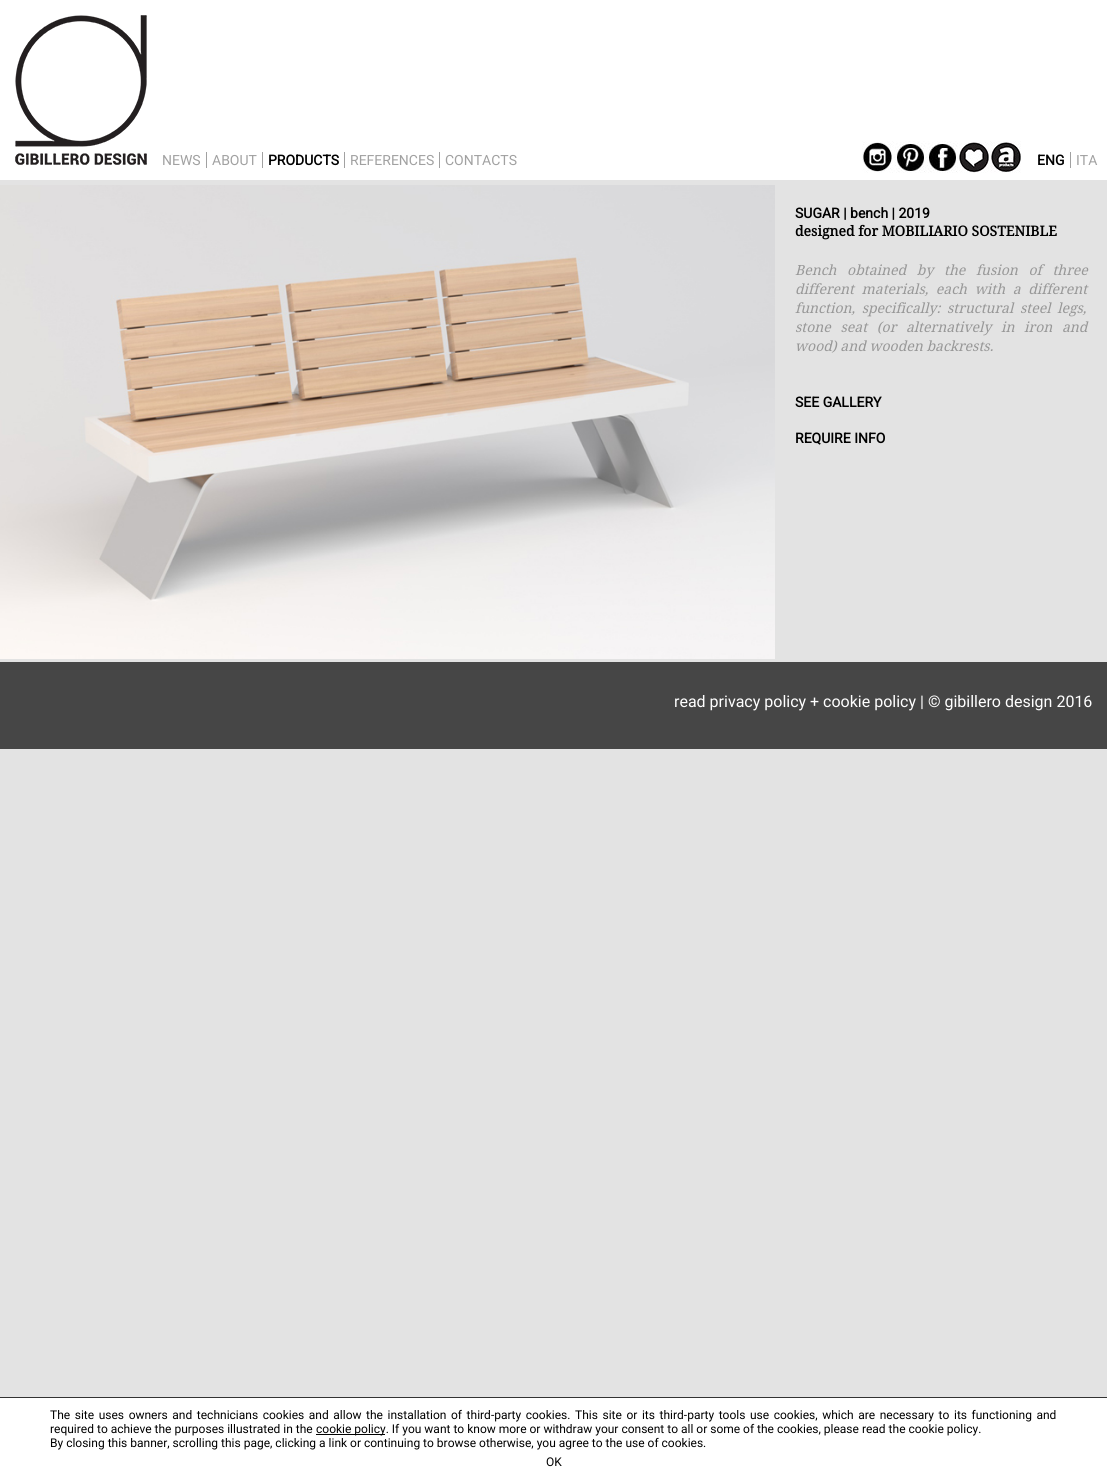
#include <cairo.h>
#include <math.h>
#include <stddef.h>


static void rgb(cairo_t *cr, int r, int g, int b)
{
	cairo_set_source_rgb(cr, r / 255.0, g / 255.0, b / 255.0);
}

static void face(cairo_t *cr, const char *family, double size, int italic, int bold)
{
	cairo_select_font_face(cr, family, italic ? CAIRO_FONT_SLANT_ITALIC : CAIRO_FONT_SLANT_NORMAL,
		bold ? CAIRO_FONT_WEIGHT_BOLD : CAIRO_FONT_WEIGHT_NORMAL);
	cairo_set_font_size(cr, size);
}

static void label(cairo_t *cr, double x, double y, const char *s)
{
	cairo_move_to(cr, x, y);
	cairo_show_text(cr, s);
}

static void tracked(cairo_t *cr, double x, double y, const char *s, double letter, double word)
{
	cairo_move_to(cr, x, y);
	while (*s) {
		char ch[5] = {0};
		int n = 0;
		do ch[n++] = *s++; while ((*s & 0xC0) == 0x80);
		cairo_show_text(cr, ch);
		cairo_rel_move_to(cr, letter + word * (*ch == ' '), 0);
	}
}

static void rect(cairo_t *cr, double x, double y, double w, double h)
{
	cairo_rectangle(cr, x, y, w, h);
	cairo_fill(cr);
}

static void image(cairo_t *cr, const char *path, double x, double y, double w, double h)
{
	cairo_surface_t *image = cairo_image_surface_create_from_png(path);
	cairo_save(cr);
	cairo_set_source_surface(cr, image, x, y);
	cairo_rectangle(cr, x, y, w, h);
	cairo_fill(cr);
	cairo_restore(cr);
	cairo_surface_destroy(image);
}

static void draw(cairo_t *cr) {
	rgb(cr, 227, 227, 227);
	cairo_paint(cr);
	rgb(cr, 255, 255, 255);
	rect(cr, 0, 0, 1107, 180);
	image(cr, "image0.png", 15, 15, 132, 150);
	rgb(cr, 161, 161, 161);
	rect(cr, 206, 152, 1, 16);
	face(cr, "Roboto", 14, 0, 0);
	label(cr, 162, 165, "NEWS");
	rect(cr, 262, 152, 1, 16);
	label(cr, 212, 165, "ABOUT");
	rect(cr, 344, 152, 1, 16);
	face(cr, "Roboto", 14, 0, 1);
	rgb(cr, 0, 0, 0);
	label(cr, 268, 165, "PRODUCTS");
	rgb(cr, 161, 161, 161);
	rect(cr, 439, 152, 1, 16);
	face(cr, "Roboto", 14, 0, 0);
	label(cr, 350, 165, "REFERENCES");
	label(cr, 445, 165, "CONTACTS");
	image(cr, "image1.png", 862, 141, 32, 32);
	image(cr, "image2.png", 894, 141, 32, 32);
	image(cr, "image3.png", 926, 141, 32, 32);
	image(cr, "image4.png", 959, 142, 30, 31);
	image(cr, "image5.png", 990, 141, 31, 32);
	rect(cr, 1070, 152, 1, 16);
	face(cr, "Roboto", 14, 0, 1);
	rgb(cr, 0, 0, 0);
	label(cr, 1037, 165, "ENG");
	face(cr, "Roboto", 14, 0, 0);
	rgb(cr, 161, 161, 161);
	label(cr, 1076, 165, "ITA");
	image(cr, "image6.png", 0, 185, 775, 474);
	face(cr, "Roboto", 14, 0, 1);
	rgb(cr, 0, 0, 0);
	label(cr, 795, 218, "SUGAR | bench | 2019");
	face(cr, "Noto Serif", 14, 0, 1);
	label(cr, 795, 236, "designed for MOBILIARIO SOSTENIBLE");
	face(cr, "Noto Serif", 14, 1, 0);
	rgb(cr, 152, 152, 152);
	tracked(cr, 795, 275, "Bench obtained by the fusion of three", 0, 7);
	tracked(cr, 795, 294, "different materials, each with a different", 0, 4);
	tracked(cr, 795, 313, "function, specifically: structural steel legs,", 0, 3);
	tracked(cr, 795, 332, "stone seat (or alternatively in iron and", 0, 6);
	label(cr, 795, 351, "wood) and wooden backrests.");
	face(cr, "Roboto", 14, 0, 1);
	rgb(cr, 0, 0, 0);
	label(cr, 795, 407, "SEE GALLERY");
	label(cr, 795, 443, "REQUIRE INFO");
	rgb(cr, 70, 70, 70);
	rect(cr, 0, 662, 1107, 87);
	face(cr, "Roboto", 16, 0, 0);
	rgb(cr, 255, 255, 255);
	label(cr, 674, 707, "read privacy policy + cookie policy | © gibillero design 2016");
	rect(cr, 0, 1398, 1107, 86);
	rgb(cr, 51, 51, 51);
	rect(cr, 0, 1397, 1107, 1);
	face(cr, "Roboto", 12, 0, 0);
	rgb(cr, 0, 0, 0);
	tracked(cr, 50, 1419, "The site uses owners and technicians cookies and allow the installation of third-party cookies.", 0, 1.6);
	tracked(cr, 575, 1419, "This site or its third-party tools use cookies, which are necessary to its functioning and", 0, 1.6);
	label(cr, 50, 1433, "required to achieve the purposes illustrated in the");
	rect(cr, 316, 1434, 69, 1);
	label(cr, 316, 1433, "cookie policy. If you want to know more or withdraw your consent to all or some of the cookies, please read the cookie policy.");
	label(cr, 50, 1447, "By closing this banner, scrolling this page, clicking a link or continuing to browse otherwise, you agree to the use of cookies.");
	label(cr, 546, 1466, "OK");
}

int main(void) {
	cairo_surface_t *surface = cairo_image_surface_create(CAIRO_FORMAT_RGB24, 1107, 1484);
	cairo_t *cr = cairo_create(surface);
	cairo_font_options_t *options = cairo_font_options_create();
	cairo_font_options_set_hint_metrics(options, CAIRO_HINT_METRICS_OFF);
	cairo_font_options_set_hint_style(options, CAIRO_HINT_STYLE_NONE);
	cairo_set_font_options(cr, options);
	cairo_set_miter_limit(cr, 4);
	draw(cr);
	cairo_surface_write_to_png(surface, "render.png");
	cairo_font_options_destroy(options);
	cairo_destroy(cr);
	cairo_surface_destroy(surface);
	return 0;
}
